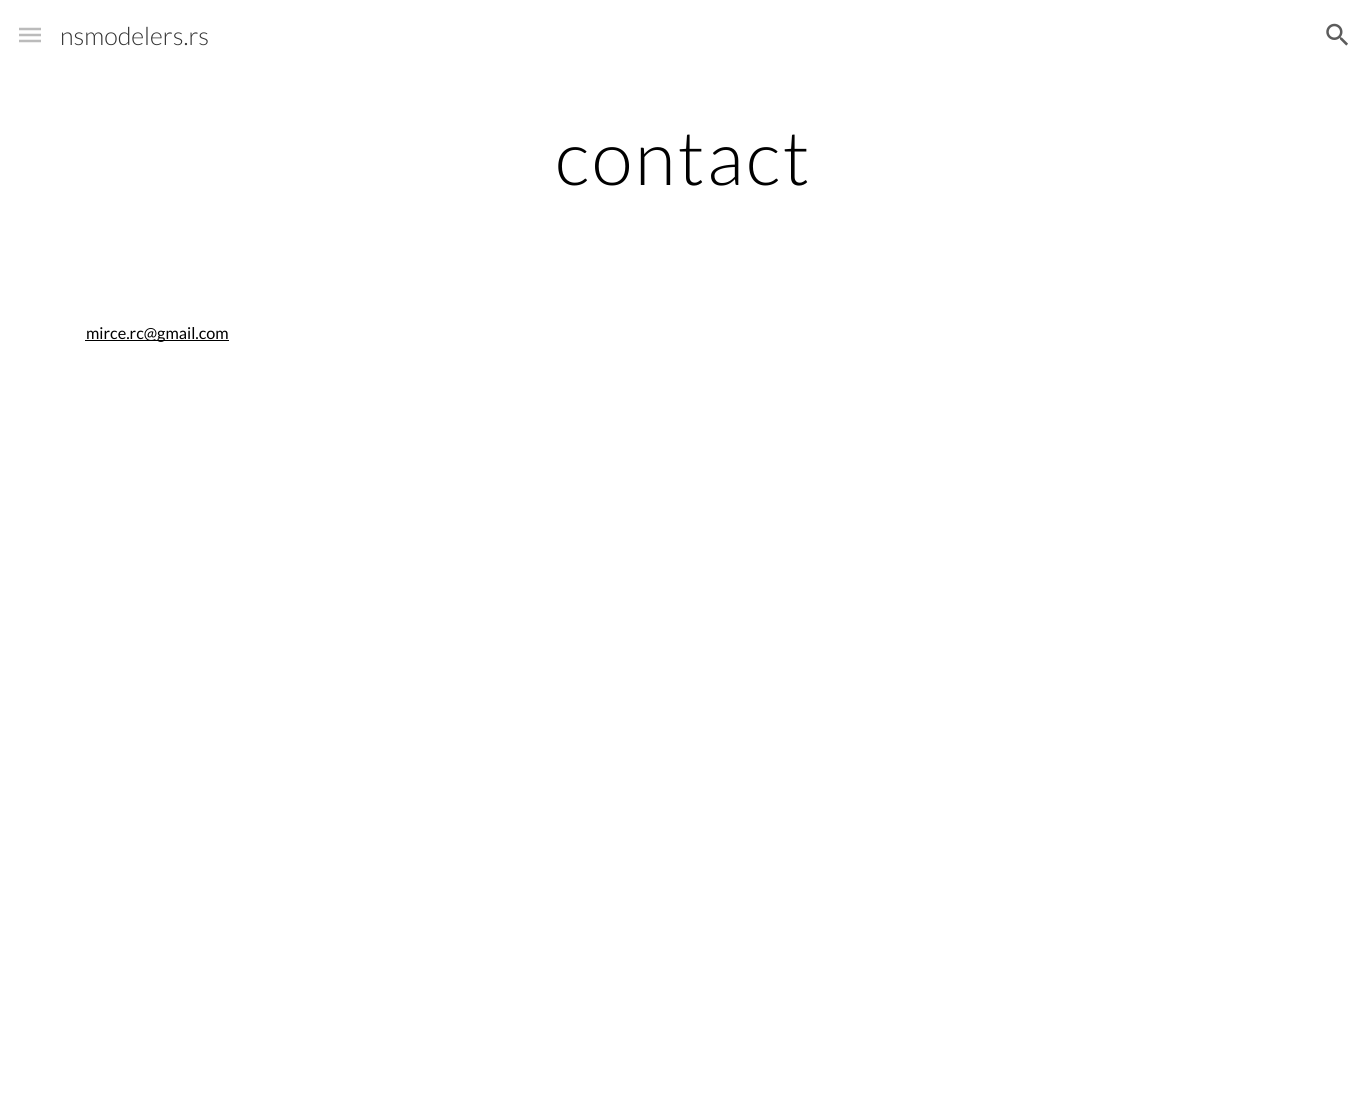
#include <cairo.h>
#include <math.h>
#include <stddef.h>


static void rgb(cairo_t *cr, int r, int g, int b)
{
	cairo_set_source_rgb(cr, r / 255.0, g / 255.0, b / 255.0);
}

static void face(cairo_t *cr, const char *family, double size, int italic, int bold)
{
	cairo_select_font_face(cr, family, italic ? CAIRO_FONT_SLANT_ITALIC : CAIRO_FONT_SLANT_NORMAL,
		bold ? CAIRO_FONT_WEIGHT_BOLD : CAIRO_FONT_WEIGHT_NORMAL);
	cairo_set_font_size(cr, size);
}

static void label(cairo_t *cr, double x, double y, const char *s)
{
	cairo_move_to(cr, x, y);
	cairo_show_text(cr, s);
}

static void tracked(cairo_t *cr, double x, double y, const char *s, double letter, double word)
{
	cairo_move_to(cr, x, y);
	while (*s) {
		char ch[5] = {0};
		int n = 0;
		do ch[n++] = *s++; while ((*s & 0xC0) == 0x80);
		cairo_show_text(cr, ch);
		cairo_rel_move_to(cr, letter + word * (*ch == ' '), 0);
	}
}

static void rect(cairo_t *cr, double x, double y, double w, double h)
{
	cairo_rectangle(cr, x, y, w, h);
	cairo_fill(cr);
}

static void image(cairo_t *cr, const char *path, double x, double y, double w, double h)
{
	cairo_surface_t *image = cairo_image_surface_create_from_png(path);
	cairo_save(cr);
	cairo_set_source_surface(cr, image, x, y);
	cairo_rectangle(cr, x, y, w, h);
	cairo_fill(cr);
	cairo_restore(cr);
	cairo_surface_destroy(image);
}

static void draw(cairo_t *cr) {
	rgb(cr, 255, 255, 255);
	cairo_paint(cr);
	cairo_new_path(cr);
	cairo_move_to(cr, 19, 29);
	cairo_line_to(cr, 41, 29);
	cairo_move_to(cr, 19, 35);
	cairo_line_to(cr, 41, 35);
	cairo_move_to(cr, 19, 41);
	cairo_line_to(cr, 41, 41);
	rgb(cr, 187, 187, 187);
	cairo_set_line_width(cr, 2.5);
	cairo_stroke(cr);
	face(cr, "Lato Light", 25, 0, 0);
	rgb(cr, 51, 51, 51);
	label(cr, 60, 45, "nsmodelers.rs");
	image(cr, "image0.png", 1326, 23, 22, 23);
	face(cr, "Lato Light", 75, 0, 0);
	rgb(cr, 0, 0, 0);
	tracked(cr, 555, 185, "contact", 2.5, 0);
	rect(cr, 85, 340, 144, 1);
	face(cr, "Lato", 16.25, 0, 0);
	label(cr, 86, 339, "mirce.rc@gmail.com");
}

int main(void) {
	cairo_surface_t *surface = cairo_image_surface_create(CAIRO_FORMAT_RGB24, 1367, 1096);
	cairo_t *cr = cairo_create(surface);
	cairo_font_options_t *options = cairo_font_options_create();
	cairo_font_options_set_hint_metrics(options, CAIRO_HINT_METRICS_OFF);
	cairo_font_options_set_hint_style(options, CAIRO_HINT_STYLE_NONE);
	cairo_set_font_options(cr, options);
	cairo_set_miter_limit(cr, 4);
	draw(cr);
	cairo_surface_write_to_png(surface, "render.png");
	cairo_font_options_destroy(options);
	cairo_destroy(cr);
	cairo_surface_destroy(surface);
	return 0;
}
